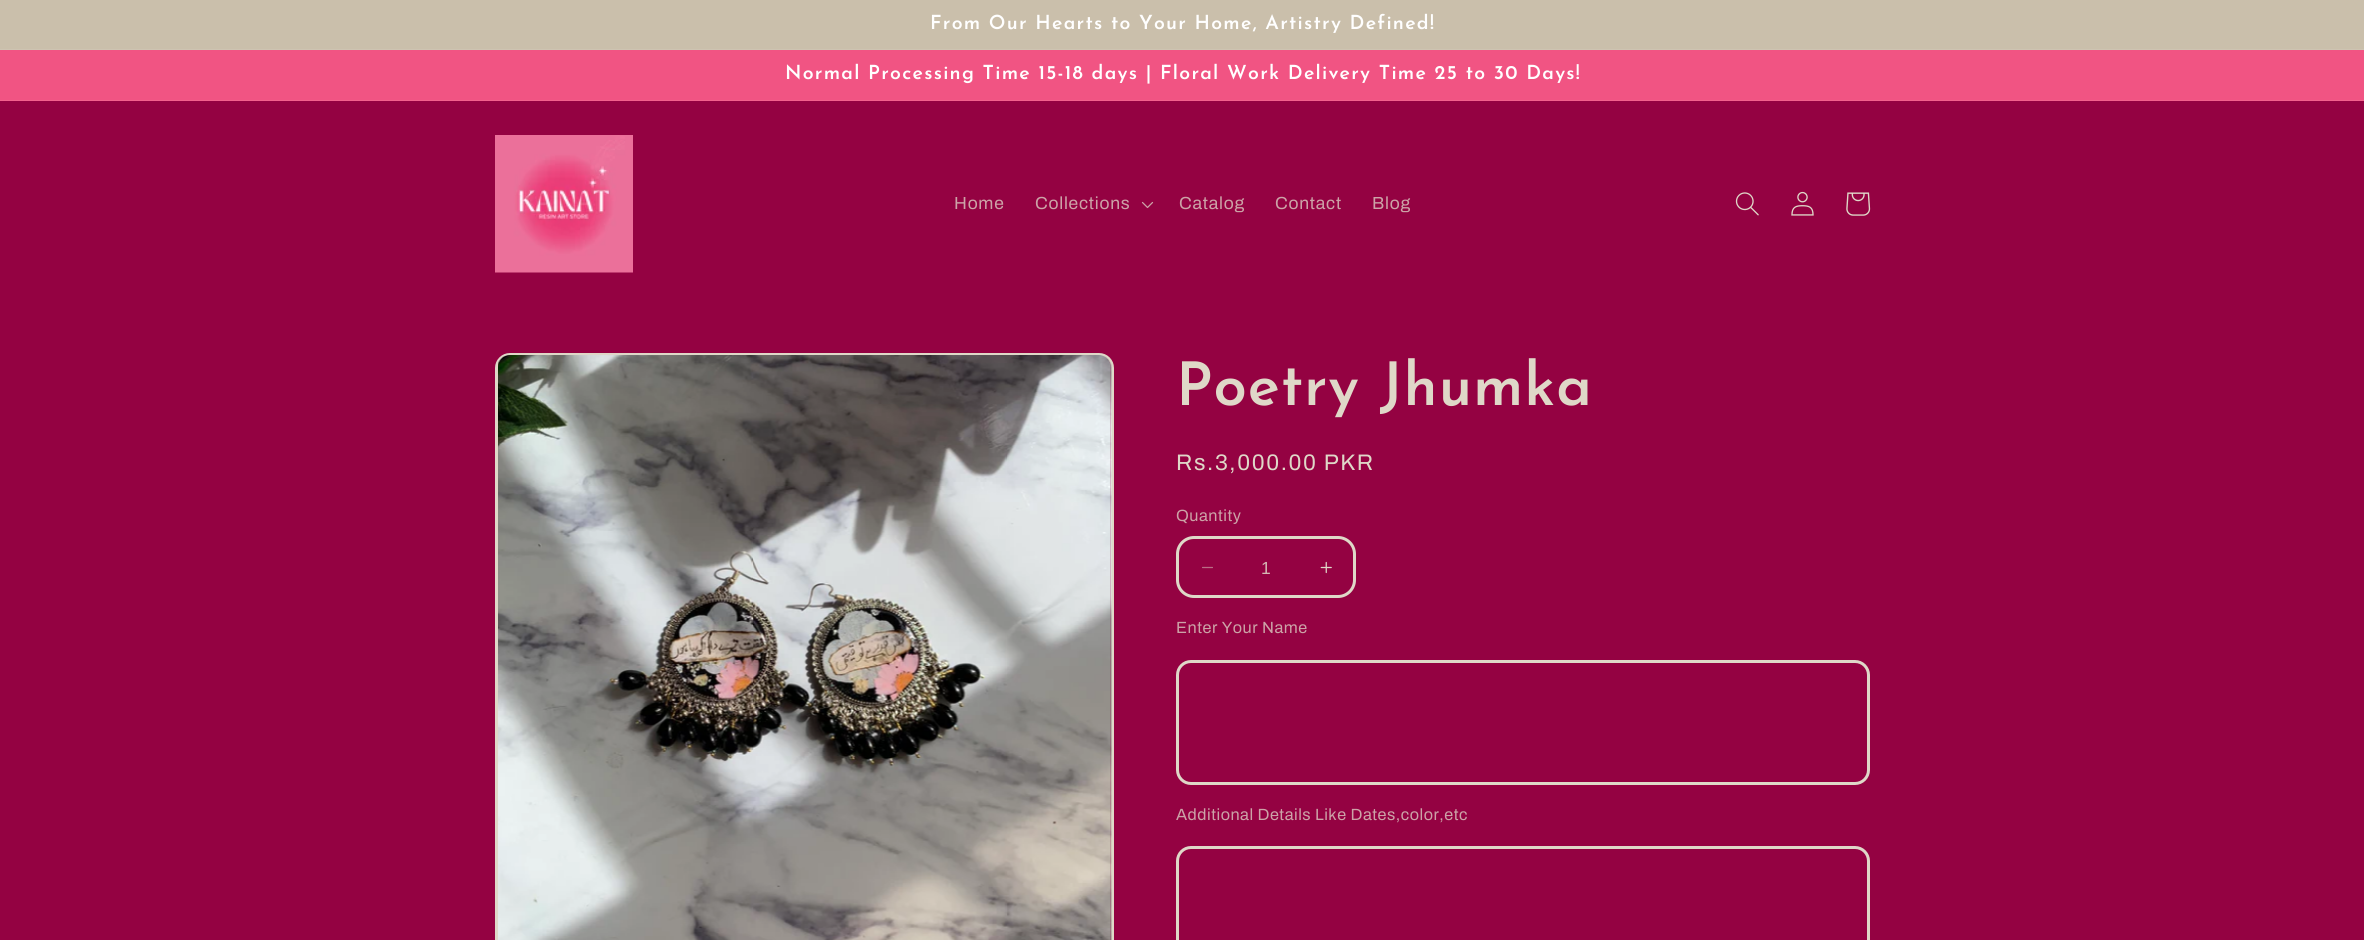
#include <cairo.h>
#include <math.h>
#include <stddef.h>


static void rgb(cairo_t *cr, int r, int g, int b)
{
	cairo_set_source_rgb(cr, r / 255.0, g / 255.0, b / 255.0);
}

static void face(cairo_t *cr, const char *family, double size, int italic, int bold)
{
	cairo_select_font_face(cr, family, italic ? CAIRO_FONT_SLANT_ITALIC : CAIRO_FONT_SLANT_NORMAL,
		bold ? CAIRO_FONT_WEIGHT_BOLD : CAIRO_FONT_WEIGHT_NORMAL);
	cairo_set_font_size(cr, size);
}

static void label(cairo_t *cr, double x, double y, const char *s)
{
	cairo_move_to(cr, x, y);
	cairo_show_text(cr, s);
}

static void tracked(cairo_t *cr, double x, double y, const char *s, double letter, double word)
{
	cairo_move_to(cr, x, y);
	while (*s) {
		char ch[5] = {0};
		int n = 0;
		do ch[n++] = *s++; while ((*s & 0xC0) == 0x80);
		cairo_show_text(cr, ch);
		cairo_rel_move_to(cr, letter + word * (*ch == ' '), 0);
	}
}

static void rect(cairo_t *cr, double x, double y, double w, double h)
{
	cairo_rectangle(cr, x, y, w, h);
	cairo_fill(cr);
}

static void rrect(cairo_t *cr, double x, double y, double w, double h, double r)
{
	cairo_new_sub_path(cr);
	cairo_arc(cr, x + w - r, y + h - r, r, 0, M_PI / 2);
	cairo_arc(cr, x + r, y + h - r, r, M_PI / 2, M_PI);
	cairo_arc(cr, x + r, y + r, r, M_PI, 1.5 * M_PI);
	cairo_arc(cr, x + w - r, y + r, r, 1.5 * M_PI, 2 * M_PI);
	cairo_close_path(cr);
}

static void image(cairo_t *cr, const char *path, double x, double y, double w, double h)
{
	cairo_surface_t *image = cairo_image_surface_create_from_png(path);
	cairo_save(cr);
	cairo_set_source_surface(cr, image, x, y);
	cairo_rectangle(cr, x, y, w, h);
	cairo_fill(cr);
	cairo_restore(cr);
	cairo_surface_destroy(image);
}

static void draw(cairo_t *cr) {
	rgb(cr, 148, 2, 66);
	cairo_paint(cr);
	rgb(cr, 202, 191, 171);
	rect(cr, 0, 0, 2364, 49);
	rgb(cr, 206, 196, 178);
	rect(cr, 0, 49, 2364, 1);
	face(cr, "Josefin Sans SemiBold", 19.5, 0, 0);
	rgb(cr, 255, 255, 255);
	tracked(cr, 930, 29, "From Our Hearts to Your Home, Artistry Defined!", 1.25, 0);
	rgb(cr, 241, 84, 131);
	rect(cr, 0, 50, 2364, 50);
	rgb(cr, 242, 98, 141);
	rect(cr, 0, 100, 2364, 1);
	rgb(cr, 255, 255, 255);
	tracked(cr, 785, 79, "Normal Processing Time 15-18 days | Floral Work Delivery Time 25 to 30 Days!", 1.25, 0);
	image(cr, "image0.png", 495, 135, 138, 138);
	face(cr, "Archivo", 17.5, 0, 0);
	rgb(cr, 204, 163, 167);
	tracked(cr, 954, 209, "Home", 0.75, 0);
	tracked(cr, 1035, 209, "Collections", 0.75, 0);
	image(cr, "image1.png", 1141, 201, 13, 8);
	tracked(cr, 1179, 209, "Catalog", 0.75, 0);
	tracked(cr, 1275, 209, "Contact", 0.75, 0);
	tracked(cr, 1372, 209, "Blog", 0.75, 0);
	image(cr, "image2.png", 1735, 192, 24, 24);
	image(cr, "image3.png", 1791, 191, 23, 25);
	image(cr, "image4.png", 1846, 192, 25, 24);
	rrect(cr, 496.5, 354.5, 616, 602, 13.5);
	rgb(cr, 223, 216, 200);
	cairo_set_line_width(cr, 3);
	cairo_stroke(cr);
	image(cr, "image5.png", 498, 355, 614, 585);
	face(cr, "Josefin Sans SemiBold", 60, 0, 0);
	tracked(cr, 1176, 405, "Poetry Jhumka", 0.9, 0);
	face(cr, "Archivo", 22.5, 0, 0);
	tracked(cr, 1176, 470, "Rs.3,000.00 PKR", 1.6, 0);
	face(cr, "Archivo", 16.25, 0, 0);
	rgb(cr, 204, 163, 167);
	tracked(cr, 1176, 521, "Quantity", 0.5, 0);
	image(cr, "image6.png", 1202, 566, 11, 3);
	image(cr, "image7.png", 1320, 561, 12, 13);
	rrect(cr, 1177.5, 537.5, 177, 59, 16.5);
	rgb(cr, 223, 216, 200);
	cairo_stroke(cr);
	face(cr, "Liberation Sans", 17.5, 0, 0);
	rgb(cr, 212, 184, 180);
	label(cr, 1261, 574, "1");
	face(cr, "Archivo", 16.25, 0, 0);
	rgb(cr, 204, 163, 167);
	tracked(cr, 1176, 633, "Enter Your Name", 0.5, 0);
	rrect(cr, 1177.5, 661.5, 691, 122, 13.5);
	rgb(cr, 223, 216, 200);
	cairo_stroke(cr);
	rgb(cr, 204, 163, 167);
	tracked(cr, 1176, 820, "Additional Details Like Dates,color,etc", 0.5, 0);
	rrect(cr, 1177.5, 847.5, 691, 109, 13.5);
	rgb(cr, 223, 216, 200);
	cairo_stroke(cr);
}

int main(void) {
	cairo_surface_t *surface = cairo_image_surface_create(CAIRO_FORMAT_RGB24, 2364, 940);
	cairo_t *cr = cairo_create(surface);
	cairo_font_options_t *options = cairo_font_options_create();
	cairo_font_options_set_hint_metrics(options, CAIRO_HINT_METRICS_OFF);
	cairo_font_options_set_hint_style(options, CAIRO_HINT_STYLE_NONE);
	cairo_set_font_options(cr, options);
	cairo_set_miter_limit(cr, 4);
	draw(cr);
	cairo_surface_write_to_png(surface, "render.png");
	cairo_font_options_destroy(options);
	cairo_destroy(cr);
	cairo_surface_destroy(surface);
	return 0;
}
